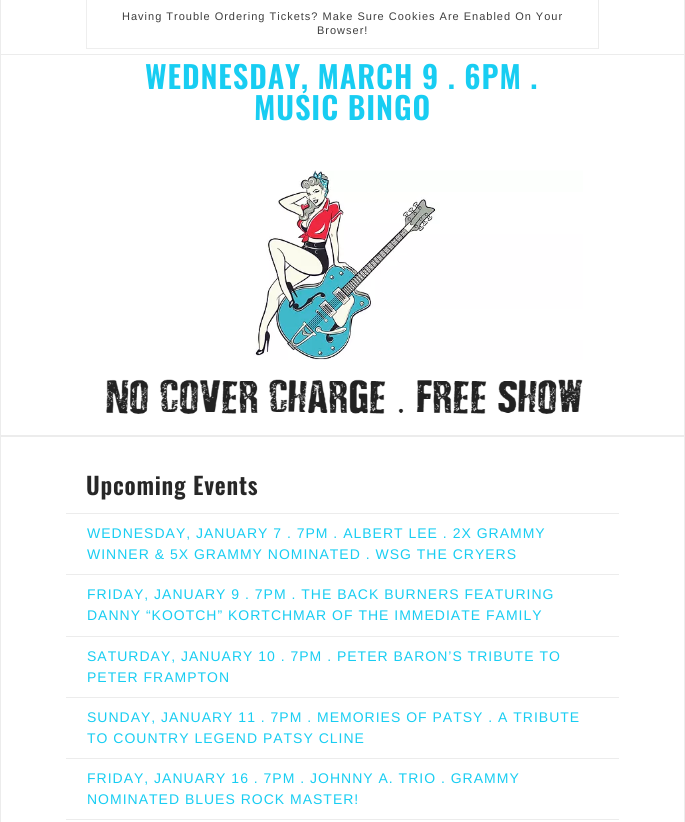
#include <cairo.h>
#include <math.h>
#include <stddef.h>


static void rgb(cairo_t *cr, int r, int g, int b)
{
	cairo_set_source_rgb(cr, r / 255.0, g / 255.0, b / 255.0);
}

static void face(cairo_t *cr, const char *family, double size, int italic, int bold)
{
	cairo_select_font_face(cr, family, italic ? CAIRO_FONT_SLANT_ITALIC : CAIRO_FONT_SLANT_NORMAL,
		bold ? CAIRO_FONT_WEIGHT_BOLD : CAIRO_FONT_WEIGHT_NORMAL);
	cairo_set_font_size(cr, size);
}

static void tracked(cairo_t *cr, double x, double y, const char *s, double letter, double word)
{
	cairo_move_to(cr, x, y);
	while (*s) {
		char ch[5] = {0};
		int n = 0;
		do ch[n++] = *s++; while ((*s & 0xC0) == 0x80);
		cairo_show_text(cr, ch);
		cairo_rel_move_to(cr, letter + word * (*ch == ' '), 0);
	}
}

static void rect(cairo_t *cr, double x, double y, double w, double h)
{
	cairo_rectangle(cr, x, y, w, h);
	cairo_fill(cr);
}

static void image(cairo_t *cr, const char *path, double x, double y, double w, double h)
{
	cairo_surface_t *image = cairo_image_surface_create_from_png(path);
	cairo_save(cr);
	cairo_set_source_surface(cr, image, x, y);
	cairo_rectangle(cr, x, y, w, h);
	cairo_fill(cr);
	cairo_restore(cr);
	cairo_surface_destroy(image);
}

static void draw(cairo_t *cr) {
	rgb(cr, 255, 255, 255);
	cairo_paint(cr);
	rgb(cr, 236, 236, 236);
	rect(cr, 684, 0, 1, 822);
	rect(cr, 0, 0, 1, 822);
	rect(cr, 1, 54, 683, 1);
	cairo_new_path(cr);
	cairo_move_to(cr, 599, 0);
	cairo_line_to(cr, 599, 49);
	cairo_line_to(cr, 598, 48);
	cairo_line_to(cr, 598, 0);
	cairo_close_path(cr);
	cairo_fill(cr);
	cairo_set_source_rgba(cr, 0, 0, 0, 0.07);
	cairo_new_path(cr);
	cairo_move_to(cr, 599, 49);
	cairo_line_to(cr, 86, 49);
	cairo_line_to(cr, 87, 48);
	cairo_line_to(cr, 598, 48);
	cairo_close_path(cr);
	cairo_fill(cr);
	cairo_new_path(cr);
	cairo_move_to(cr, 86, 49);
	cairo_line_to(cr, 86, 0);
	cairo_line_to(cr, 87, 0);
	cairo_line_to(cr, 87, 48);
	cairo_close_path(cr);
	cairo_fill(cr);
	face(cr, "Liberation Sans", 11, 0, 0);
	rgb(cr, 62, 62, 62);
	tracked(cr, 122, 20, "Having Trouble Ordering Tickets? Make Sure Cookies Are Enabled On Your", 1, 0);
	tracked(cr, 317, 34, "Browser!", 1, 0);
	rgb(cr, 236, 236, 236);
	rect(cr, 1, 435, 683, 2);
	face(cr, "Oswald SemiBold", 30.75, 0, 0);
	rgb(cr, 24, 205, 242);
	tracked(cr, 145, 89, "WEDNESDAY, MARCH 9 . 6PM .", 0.9, 0);
	tracked(cr, 254, 120, "MUSIC BINGO", 0.9, 0);
	image(cr, "image0.png", 106, 170, 477, 244);
	face(cr, "Oswald SemiBold", 23.75, 0, 0);
	rgb(cr, 39, 39, 39);
	tracked(cr, 86, 495, "Upcoming Events", 0.75, 0);
	rgb(cr, 236, 236, 236);
	rect(cr, 66, 513, 553, 1);
	rect(cr, 66, 574, 553, 1);
	face(cr, "Liberation Sans", 14, 0, 0);
	rgb(cr, 24, 205, 242);
	tracked(cr, 87, 538, "WEDNESDAY, JANUARY 7 . 7PM . ALBERT LEE . 2X GRAMMY", 1, 0);
	tracked(cr, 87, 559, "WINNER & 5X GRAMMY NOMINATED . WSG THE CRYERS", 1, 0);
	rgb(cr, 236, 236, 236);
	rect(cr, 66, 636, 553, 1);
	rgb(cr, 24, 205, 242);
	tracked(cr, 87, 599, "FRIDAY, JANUARY 9 . 7PM . THE BACK BURNERS FEATURING", 1, 0);
	tracked(cr, 87, 620, "DANNY “KOOTCH” KORTCHMAR OF THE IMMEDIATE FAMILY", 1, 0);
	rgb(cr, 236, 236, 236);
	rect(cr, 66, 697, 553, 1);
	rgb(cr, 24, 205, 242);
	tracked(cr, 87, 661, "SATURDAY, JANUARY 10 . 7PM . PETER BARON’S TRIBUTE TO", 1, 0);
	tracked(cr, 87, 682, "PETER FRAMPTON", 1, 0);
	rgb(cr, 236, 236, 236);
	rect(cr, 66, 758, 553, 1);
	rgb(cr, 24, 205, 242);
	tracked(cr, 87, 722, "SUNDAY, JANUARY 11 . 7PM . MEMORIES OF PATSY . A TRIBUTE", 1, 0);
	tracked(cr, 87, 743, "TO COUNTRY LEGEND PATSY CLINE", 1, 0);
	rgb(cr, 236, 236, 236);
	rect(cr, 66, 819, 553, 1);
	rgb(cr, 24, 205, 242);
	tracked(cr, 87, 783, "FRIDAY, JANUARY 16 . 7PM . JOHNNY A. TRIO . GRAMMY", 1, 0);
	tracked(cr, 87, 804, "NOMINATED BLUES ROCK MASTER!", 1, 0);
}

int main(void) {
	cairo_surface_t *surface = cairo_image_surface_create(CAIRO_FORMAT_RGB24, 685, 822);
	cairo_t *cr = cairo_create(surface);
	cairo_font_options_t *options = cairo_font_options_create();
	cairo_font_options_set_hint_metrics(options, CAIRO_HINT_METRICS_OFF);
	cairo_font_options_set_hint_style(options, CAIRO_HINT_STYLE_NONE);
	cairo_set_font_options(cr, options);
	cairo_set_miter_limit(cr, 4);
	draw(cr);
	cairo_surface_write_to_png(surface, "render.png");
	cairo_font_options_destroy(options);
	cairo_destroy(cr);
	cairo_surface_destroy(surface);
	return 0;
}
